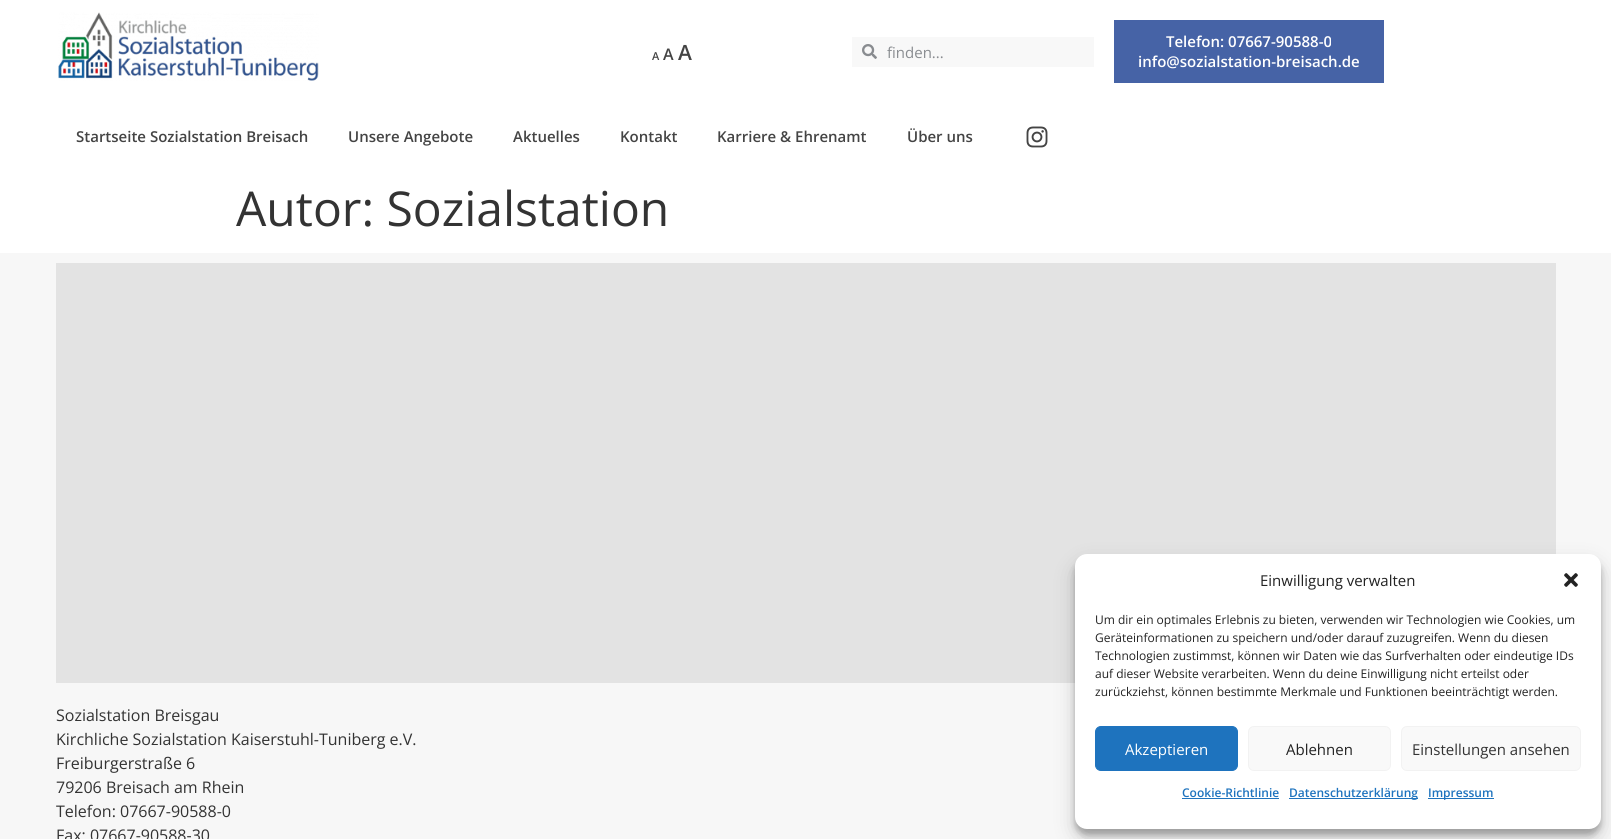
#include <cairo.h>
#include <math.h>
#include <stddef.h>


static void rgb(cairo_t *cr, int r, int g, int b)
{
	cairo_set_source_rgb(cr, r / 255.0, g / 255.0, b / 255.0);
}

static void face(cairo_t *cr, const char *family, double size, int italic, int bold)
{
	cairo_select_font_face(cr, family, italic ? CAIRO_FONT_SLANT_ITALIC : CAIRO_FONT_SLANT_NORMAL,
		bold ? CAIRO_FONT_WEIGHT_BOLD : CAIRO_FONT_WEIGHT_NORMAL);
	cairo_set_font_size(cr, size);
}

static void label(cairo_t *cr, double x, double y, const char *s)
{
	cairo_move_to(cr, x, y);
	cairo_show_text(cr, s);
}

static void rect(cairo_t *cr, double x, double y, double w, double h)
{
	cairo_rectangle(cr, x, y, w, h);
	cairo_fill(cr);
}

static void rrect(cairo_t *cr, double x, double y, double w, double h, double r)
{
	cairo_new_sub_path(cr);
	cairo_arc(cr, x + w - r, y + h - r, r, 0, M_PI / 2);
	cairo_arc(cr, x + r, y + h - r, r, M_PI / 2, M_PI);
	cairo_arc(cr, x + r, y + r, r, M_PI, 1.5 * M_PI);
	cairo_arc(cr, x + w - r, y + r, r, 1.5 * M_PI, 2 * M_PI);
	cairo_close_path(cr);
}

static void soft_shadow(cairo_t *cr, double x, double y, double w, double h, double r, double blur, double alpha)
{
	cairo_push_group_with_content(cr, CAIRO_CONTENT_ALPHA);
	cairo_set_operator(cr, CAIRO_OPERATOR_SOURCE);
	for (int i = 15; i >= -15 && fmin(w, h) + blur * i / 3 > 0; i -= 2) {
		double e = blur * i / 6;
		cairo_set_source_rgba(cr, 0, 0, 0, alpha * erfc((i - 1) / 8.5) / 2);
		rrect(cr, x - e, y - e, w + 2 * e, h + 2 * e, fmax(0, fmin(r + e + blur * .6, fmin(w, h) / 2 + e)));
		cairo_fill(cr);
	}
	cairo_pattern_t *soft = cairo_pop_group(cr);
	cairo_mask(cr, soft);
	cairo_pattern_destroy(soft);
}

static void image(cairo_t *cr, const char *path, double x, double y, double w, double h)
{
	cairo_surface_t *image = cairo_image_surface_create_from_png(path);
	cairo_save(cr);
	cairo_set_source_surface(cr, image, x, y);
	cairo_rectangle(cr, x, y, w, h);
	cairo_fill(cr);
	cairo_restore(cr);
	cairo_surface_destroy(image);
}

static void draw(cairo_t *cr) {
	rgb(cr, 255, 255, 255);
	cairo_paint(cr);
	image(cr, "image0.png", 58, 12, 261, 69);
	face(cr, "Open Sans SemiBold", 11, 0, 0);
	rgb(cr, 68, 68, 68);
	label(cr, 652, 60, "A");
	face(cr, "Open Sans SemiBold", 16, 0, 0);
	label(cr, 663, 60, "A");
	face(cr, "Open Sans SemiBold", 21, 0, 0);
	label(cr, 678, 60, "A");
	rgb(cr, 248, 248, 248);
	rect(cr, 852, 37, 242, 30);
	image(cr, "image1.png", 862, 44, 15, 15);
	face(cr, "Open Sans", 15, 0, 0);
	rgb(cr, 137, 140, 144);
	label(cr, 887, 58, "finden...");
	rgb(cr, 70, 99, 166);
	rect(cr, 1114, 20, 270, 63);
	face(cr, "Open Sans SemiBold", 15, 0, 0);
	rgb(cr, 255, 255, 255);
	label(cr, 1166, 47, "Telefon: 07667-90588-0");
	label(cr, 1138, 67, "info@sozialstation-breisach.de");
	rgb(cr, 68, 68, 68);
	label(cr, 76, 142, "Startseite Sozialstation Breisach");
	label(cr, 348, 142, "Unsere Angebote");
	label(cr, 513, 142, "Aktuelles");
	label(cr, 620, 142, "Kontakt");
	label(cr, 717, 142, "Karriere & Ehrenamt");
	label(cr, 907, 142, "Über uns");
	image(cr, "image2.png", 1026, 126, 22, 22);
	face(cr, "Open Sans", 48, 0, 0);
	rgb(cr, 51, 51, 51);
	label(cr, 236, 226, "Autor: Sozialstation");
	rgb(cr, 247, 247, 247);
	rect(cr, 0, 253, 1611, 586);
	rgb(cr, 227, 227, 227);
	rect(cr, 56, 263, 1500, 420);
	face(cr, "Open Sans", 16, 0, 0);
	rgb(cr, 51, 51, 51);
	label(cr, 56, 721, "Sozialstation Breisgau");
	label(cr, 56, 745, "Kirchliche Sozialstation Kaiserstuhl-Tuniberg e.V.");
	label(cr, 56, 769, "Freiburgerstraße 6");
	label(cr, 56, 793, "79206 Breisach am Rhein");
	label(cr, 56, 817, "Telefon: 07667-90588-0");
	label(cr, 56, 841, "Fax: 07667-90588-30");
	rgb(cr, 0, 0, 0);
	soft_shadow(cr, 1075, 560, 526, 275, 12, 3, 0.23);
	soft_shadow(cr, 1075, 564, 526, 275, 12, 10, 0.19);
	rgb(cr, 255, 255, 255);
	rrect(cr, 1075, 554, 526, 275, 12);
	cairo_fill(cr);
	face(cr, "Open Sans", 15, 0, 0);
	rgb(cr, 34, 34, 34);
	label(cr, 1260, 586, "Einwilligung verwalten");
	image(cr, "image3.png", 1564, 573, 14, 14);
	face(cr, "Open Sans", 12, 0, 0);
	label(cr, 1095, 624, "Um dir ein optimales Erlebnis zu bieten, verwenden wir Technologien wie Cookies, um");
	label(cr, 1095, 642, "Geräteinformationen zu speichern und/oder darauf zuzugreifen. Wenn du diesen");
	label(cr, 1095, 660, "Technologien zustimmst, können wir Daten wie das Surfverhalten oder eindeutige IDs");
	label(cr, 1095, 678, "auf dieser Website verarbeiten. Wenn du deine Einwilligung nicht erteilst oder");
	label(cr, 1095, 696, "zurückziehst, können bestimmte Merkmale und Funktionen beeinträchtigt werden.");
	rgb(cr, 30, 115, 190);
	rrect(cr, 1095.5, 726.5, 142, 44, 5.5);
	cairo_fill_preserve(cr);
	cairo_set_line_width(cr, 1);
	cairo_stroke(cr);
	face(cr, "Open Sans", 15, 0, 0);
	rgb(cr, 255, 255, 255);
	label(cr, 1125, 755, "Akzeptieren");
	rgb(cr, 249, 249, 249);
	rrect(cr, 1248.5, 726.5, 142, 44, 5.5);
	cairo_fill_preserve(cr);
	rgb(cr, 242, 242, 242);
	cairo_stroke(cr);
	rgb(cr, 34, 34, 34);
	label(cr, 1286, 755, "Ablehnen");
	rgb(cr, 249, 249, 249);
	rrect(cr, 1401.5, 726.5, 179, 44, 5.5);
	cairo_fill_preserve(cr);
	rgb(cr, 242, 242, 242);
	cairo_stroke(cr);
	rgb(cr, 51, 51, 51);
	label(cr, 1412, 755, "Einstellungen ansehen");
	face(cr, "Open Sans SemiBold", 12, 0, 0);
	rgb(cr, 30, 115, 190);
	label(cr, 1182, 797, "Cookie-Richtlinie");
	rect(cr, 1182, 798, 97, 1);
	rect(cr, 1289, 798, 129, 1);
	label(cr, 1289, 797, "Datenschutzerklärung");
	rect(cr, 1428, 798, 66, 1);
	label(cr, 1428, 797, "Impressum");
}

int main(void) {
	cairo_surface_t *surface = cairo_image_surface_create(CAIRO_FORMAT_RGB24, 1611, 839);
	cairo_t *cr = cairo_create(surface);
	cairo_font_options_t *options = cairo_font_options_create();
	cairo_font_options_set_hint_metrics(options, CAIRO_HINT_METRICS_OFF);
	cairo_font_options_set_hint_style(options, CAIRO_HINT_STYLE_NONE);
	cairo_set_font_options(cr, options);
	cairo_set_miter_limit(cr, 4);
	draw(cr);
	cairo_surface_write_to_png(surface, "render.png");
	cairo_font_options_destroy(options);
	cairo_destroy(cr);
	cairo_surface_destroy(surface);
	return 0;
}
